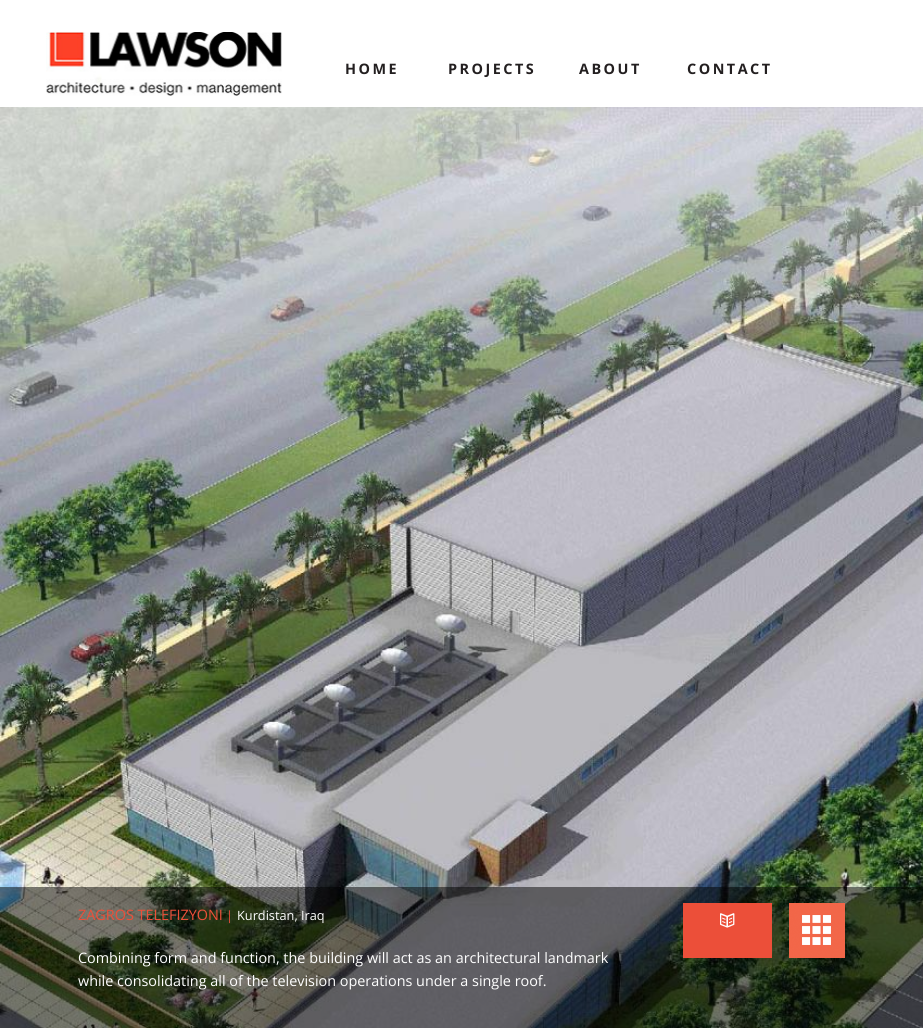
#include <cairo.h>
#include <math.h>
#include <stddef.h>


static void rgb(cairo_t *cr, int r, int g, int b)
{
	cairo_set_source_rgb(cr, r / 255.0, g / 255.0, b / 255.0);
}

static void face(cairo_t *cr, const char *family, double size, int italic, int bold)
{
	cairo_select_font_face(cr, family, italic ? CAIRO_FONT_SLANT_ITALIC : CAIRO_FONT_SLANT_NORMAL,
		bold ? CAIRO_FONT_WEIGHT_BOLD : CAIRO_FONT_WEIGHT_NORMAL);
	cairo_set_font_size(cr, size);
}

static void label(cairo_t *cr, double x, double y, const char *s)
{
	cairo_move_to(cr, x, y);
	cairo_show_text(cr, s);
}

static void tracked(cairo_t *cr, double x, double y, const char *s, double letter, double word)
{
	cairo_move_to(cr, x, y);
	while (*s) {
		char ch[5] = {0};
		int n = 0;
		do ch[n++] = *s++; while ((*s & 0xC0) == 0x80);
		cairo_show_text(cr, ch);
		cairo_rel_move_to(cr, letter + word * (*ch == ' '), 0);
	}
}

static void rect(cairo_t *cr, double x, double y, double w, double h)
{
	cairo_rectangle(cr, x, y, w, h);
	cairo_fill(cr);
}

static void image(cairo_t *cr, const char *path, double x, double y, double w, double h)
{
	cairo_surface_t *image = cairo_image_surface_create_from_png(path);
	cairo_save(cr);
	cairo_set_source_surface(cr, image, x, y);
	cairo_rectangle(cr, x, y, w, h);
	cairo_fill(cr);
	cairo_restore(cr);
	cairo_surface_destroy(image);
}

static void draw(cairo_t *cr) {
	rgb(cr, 255, 255, 255);
	cairo_paint(cr);
	image(cr, "image0.png", 46, 32, 236, 64);
	face(cr, "Open Sans", 14.4, 0, 1);
	rgb(cr, 35, 31, 32);
	tracked(cr, 345, 74, "HOME", 2.5, 0);
	tracked(cr, 448, 74, "PROJECTS", 2.5, 0);
	tracked(cr, 579, 74, "ABOUT", 2.5, 0);
	tracked(cr, 687, 74, "CONTACT", 2.5, 0);
	image(cr, "image1.png", 0, 107, 923, 921);
	cairo_set_source_rgba(cr, 0, 0, 0, 0.5);
	rect(cr, 0, 887, 923, 141);
	face(cr, "Open Sans", 14.4, 0, 0);
	rgb(cr, 236, 79, 57);
	label(cr, 78, 920, "ZAGROS TELEFIZYONI");
	face(cr, "Open Sans", 12.75, 0, 0);
	label(cr, 226, 920, "|");
	rgb(cr, 255, 255, 255);
	label(cr, 237, 920, "Kurdistan, Iraq");
	face(cr, "Open Sans", 14.4, 0, 0);
	label(cr, 78, 963, "Combining form and function, the building will act as an architectural landmark");
	label(cr, 78, 986, "while consolidating all of the television operations under a single roof.");
	rgb(cr, 236, 79, 57);
	rect(cr, 683, 903, 89, 55);
	image(cr, "image2.png", 720, 913, 15, 15);
	image(cr, "image3.png", 789, 903, 56, 55);
}

int main(void) {
	cairo_surface_t *surface = cairo_image_surface_create(CAIRO_FORMAT_RGB24, 923, 1028);
	cairo_t *cr = cairo_create(surface);
	cairo_font_options_t *options = cairo_font_options_create();
	cairo_font_options_set_hint_metrics(options, CAIRO_HINT_METRICS_OFF);
	cairo_font_options_set_hint_style(options, CAIRO_HINT_STYLE_NONE);
	cairo_set_font_options(cr, options);
	cairo_set_miter_limit(cr, 4);
	draw(cr);
	cairo_surface_write_to_png(surface, "render.png");
	cairo_font_options_destroy(options);
	cairo_destroy(cr);
	cairo_surface_destroy(surface);
	return 0;
}
